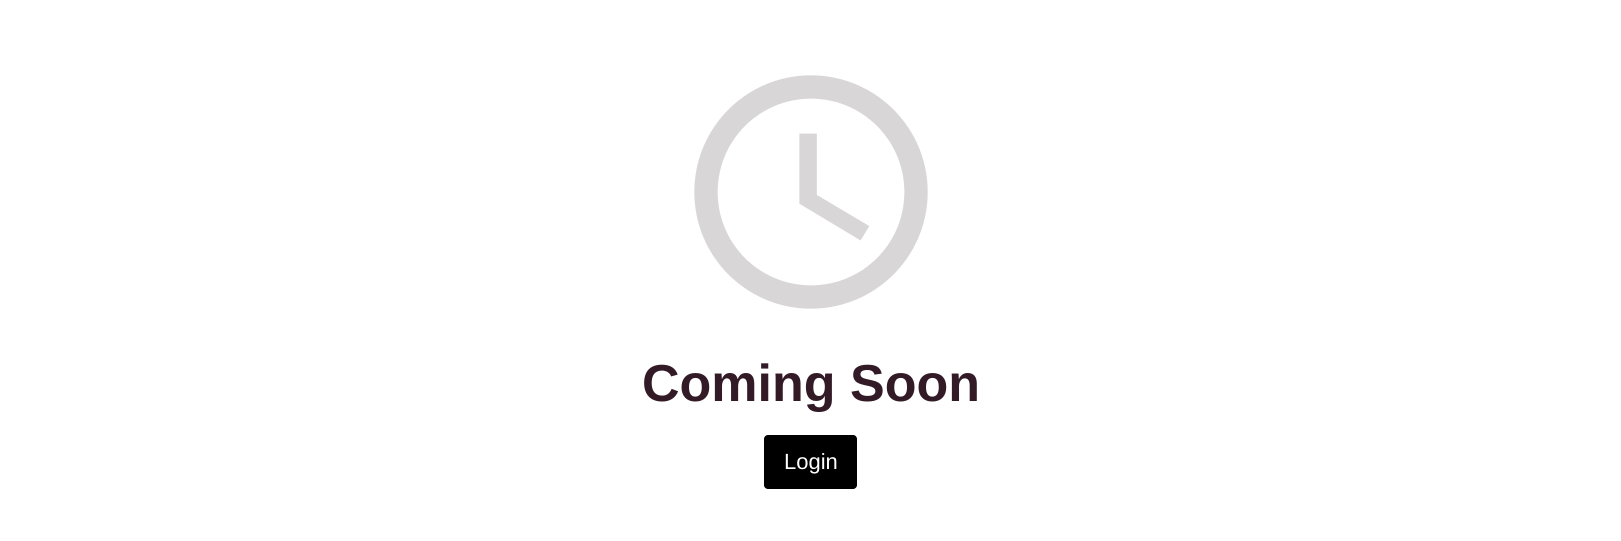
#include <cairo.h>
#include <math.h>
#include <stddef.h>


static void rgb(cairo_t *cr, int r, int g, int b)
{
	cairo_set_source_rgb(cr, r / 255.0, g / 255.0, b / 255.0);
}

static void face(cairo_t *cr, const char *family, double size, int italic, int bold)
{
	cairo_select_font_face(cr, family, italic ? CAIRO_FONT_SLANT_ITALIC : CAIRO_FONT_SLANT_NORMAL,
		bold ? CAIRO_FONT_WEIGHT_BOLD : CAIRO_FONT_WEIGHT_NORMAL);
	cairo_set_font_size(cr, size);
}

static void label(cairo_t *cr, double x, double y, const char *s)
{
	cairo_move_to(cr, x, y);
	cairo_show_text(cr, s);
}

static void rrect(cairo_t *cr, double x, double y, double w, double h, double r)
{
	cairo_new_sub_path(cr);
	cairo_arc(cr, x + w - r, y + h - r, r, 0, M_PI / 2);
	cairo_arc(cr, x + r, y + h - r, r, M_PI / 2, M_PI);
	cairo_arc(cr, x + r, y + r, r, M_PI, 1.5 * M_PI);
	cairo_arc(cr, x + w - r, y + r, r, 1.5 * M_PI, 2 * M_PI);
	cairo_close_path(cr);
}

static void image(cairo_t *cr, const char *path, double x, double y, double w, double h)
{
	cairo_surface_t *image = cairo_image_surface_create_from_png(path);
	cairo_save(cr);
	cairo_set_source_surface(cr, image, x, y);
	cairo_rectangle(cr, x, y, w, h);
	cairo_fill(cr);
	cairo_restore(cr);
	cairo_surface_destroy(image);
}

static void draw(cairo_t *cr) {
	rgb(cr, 255, 255, 255);
	cairo_paint(cr);
	image(cr, "image0.png", 694, 75, 234, 234);
	face(cr, "Liberation Sans", 52, 0, 1);
	rgb(cr, 50, 27, 38);
	label(cr, 642, 401, "Coming Soon");
	rgb(cr, 0, 0, 0);
	rrect(cr, 764, 435, 93, 54, 4);
	cairo_fill(cr);
	face(cr, "Liberation Sans", 22, 0, 0);
	rgb(cr, 255, 255, 255);
	label(cr, 784, 469, "Login");
}

int main(void) {
	cairo_surface_t *surface = cairo_image_surface_create(CAIRO_FORMAT_RGB24, 1621, 541);
	cairo_t *cr = cairo_create(surface);
	cairo_font_options_t *options = cairo_font_options_create();
	cairo_font_options_set_hint_metrics(options, CAIRO_HINT_METRICS_OFF);
	cairo_font_options_set_hint_style(options, CAIRO_HINT_STYLE_NONE);
	cairo_set_font_options(cr, options);
	cairo_set_miter_limit(cr, 4);
	draw(cr);
	cairo_surface_write_to_png(surface, "render.png");
	cairo_font_options_destroy(options);
	cairo_destroy(cr);
	cairo_surface_destroy(surface);
	return 0;
}
